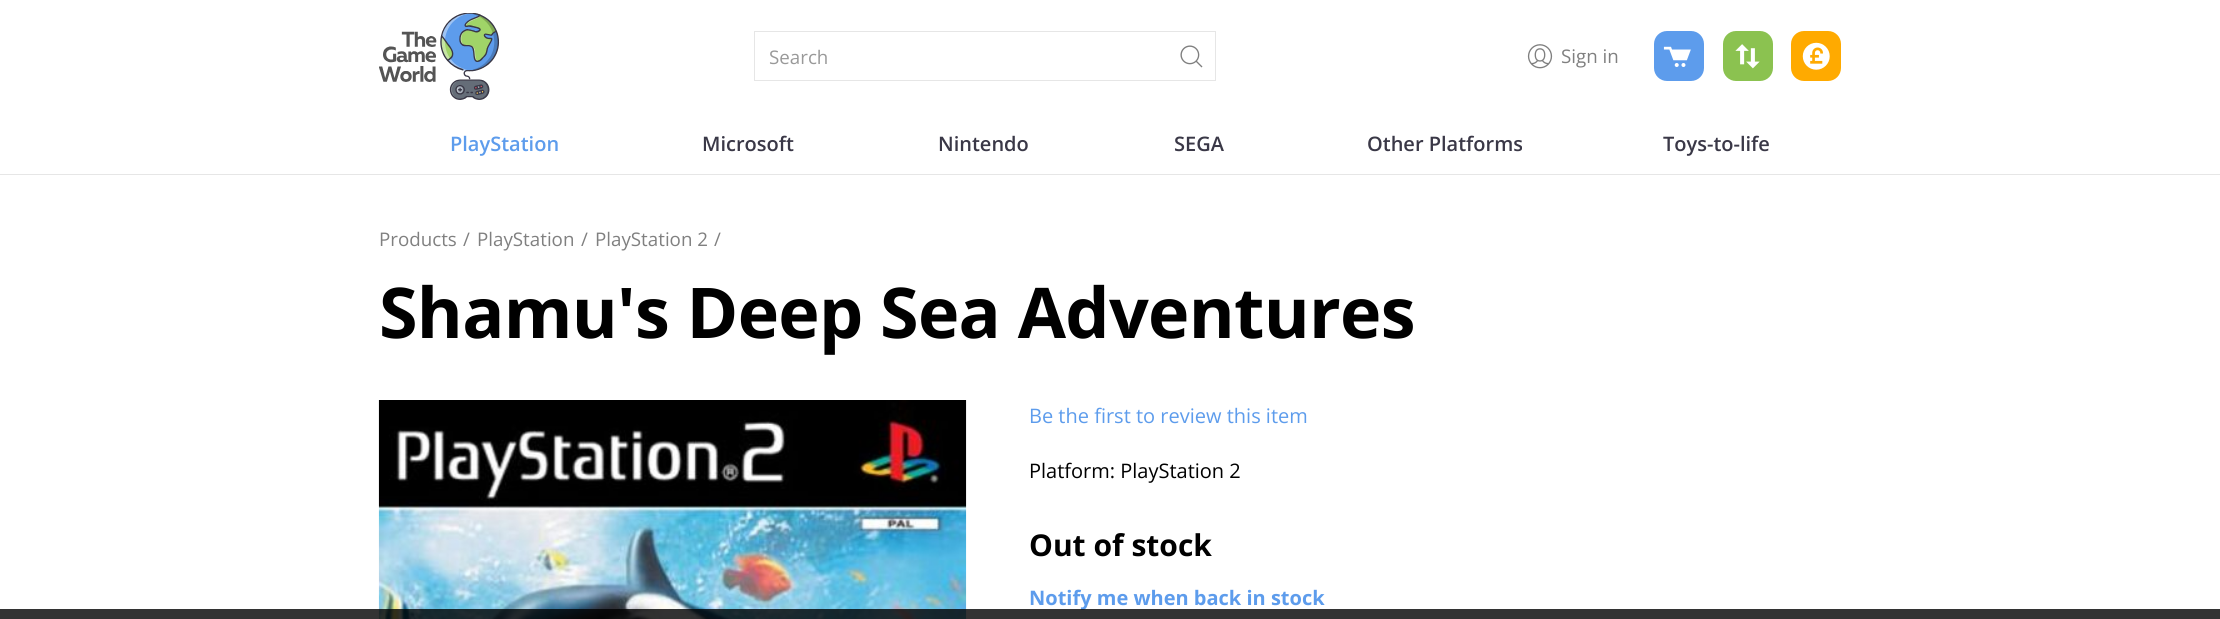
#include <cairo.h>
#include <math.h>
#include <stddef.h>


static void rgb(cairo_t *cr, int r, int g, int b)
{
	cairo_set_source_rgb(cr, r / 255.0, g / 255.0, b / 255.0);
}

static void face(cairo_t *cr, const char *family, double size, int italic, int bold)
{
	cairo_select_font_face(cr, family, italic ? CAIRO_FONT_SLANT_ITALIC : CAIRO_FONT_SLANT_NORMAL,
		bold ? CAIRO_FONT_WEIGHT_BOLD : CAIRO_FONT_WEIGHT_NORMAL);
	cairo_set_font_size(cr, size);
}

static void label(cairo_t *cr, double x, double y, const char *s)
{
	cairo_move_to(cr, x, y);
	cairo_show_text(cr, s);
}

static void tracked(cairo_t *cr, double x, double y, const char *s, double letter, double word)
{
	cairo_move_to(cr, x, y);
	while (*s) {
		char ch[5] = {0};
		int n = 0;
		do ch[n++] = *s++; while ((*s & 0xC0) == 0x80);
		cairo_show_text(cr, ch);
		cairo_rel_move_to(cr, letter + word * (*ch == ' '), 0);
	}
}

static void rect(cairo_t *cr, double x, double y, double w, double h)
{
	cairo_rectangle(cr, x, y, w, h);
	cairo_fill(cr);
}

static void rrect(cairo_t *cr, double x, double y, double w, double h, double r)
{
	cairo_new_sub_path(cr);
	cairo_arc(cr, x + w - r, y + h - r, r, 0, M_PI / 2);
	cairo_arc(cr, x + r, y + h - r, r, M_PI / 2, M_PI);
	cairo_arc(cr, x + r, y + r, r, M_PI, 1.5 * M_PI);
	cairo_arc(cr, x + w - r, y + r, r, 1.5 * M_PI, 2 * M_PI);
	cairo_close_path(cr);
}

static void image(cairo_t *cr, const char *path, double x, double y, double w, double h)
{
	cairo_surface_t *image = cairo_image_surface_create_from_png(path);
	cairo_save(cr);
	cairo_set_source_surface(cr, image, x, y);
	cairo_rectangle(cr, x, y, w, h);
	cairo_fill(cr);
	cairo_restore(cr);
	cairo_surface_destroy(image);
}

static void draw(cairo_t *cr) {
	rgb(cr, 255, 255, 255);
	cairo_paint(cr);
	rgb(cr, 230, 230, 230);
	rect(cr, 0, 174, 2220, 1);
	image(cr, "image0.png", 379, 13, 121, 87);
	cairo_rectangle(cr, 754.5, 31.5, 461, 49);
	cairo_set_line_width(cr, 1);
	cairo_stroke(cr);
	face(cr, "Open Sans", 18.75, 0, 0);
	rgb(cr, 153, 153, 153);
	label(cr, 769, 64, "Search");
	image(cr, "image1.png", 1180, 45, 23, 23);
	image(cr, "image2.png", 1527, 44, 26, 25);
	rgb(cr, 128, 128, 128);
	label(cr, 1561, 63, "Sign in");
	rgb(cr, 93, 156, 236);
	rrect(cr, 1654, 31, 50, 50, 13);
	cairo_fill(cr);
	image(cr, "image3.png", 1663, 46, 28, 21);
	rgb(cr, 139, 194, 80);
	rrect(cr, 1723, 31, 50, 50, 13);
	cairo_fill(cr);
	image(cr, "image4.png", 1735, 44, 25, 25);
	rgb(cr, 255, 170, 0);
	rrect(cr, 1791, 31, 50, 50, 13);
	cairo_fill(cr);
	image(cr, "image5.png", 1802, 42, 28, 28);
	face(cr, "Open Sans SemiBold", 20, 0, 0);
	rgb(cr, 93, 156, 236);
	label(cr, 450, 151, "PlayStation");
	rgb(cr, 58, 56, 71);
	label(cr, 702, 151, "Microsoft");
	label(cr, 938, 151, "Nintendo");
	label(cr, 1174, 151, "SEGA");
	label(cr, 1367, 151, "Other Platforms");
	label(cr, 1663, 151, "Toys-to-life");
	face(cr, "Open Sans", 18.75, 0, 0);
	rgb(cr, 128, 128, 128);
	label(cr, 379, 246, "Products");
	label(cr, 463, 246, "/");
	label(cr, 477, 246, "PlayStation");
	label(cr, 581, 246, "/");
	label(cr, 595, 246, "PlayStation 2");
	label(cr, 714, 246, "/");
	face(cr, "Open Sans", 70, 0, 1);
	rgb(cr, 0, 0, 0);
	tracked(cr, 379, 338, "Shamu's Deep Sea Adventures", -0.7, 0);
	image(cr, "image6.png", 378, 400, 589, 219);
	face(cr, "Open Sans", 20, 0, 0);
	rgb(cr, 93, 156, 236);
	label(cr, 1029, 423, "Be the first to review this item");
	rgb(cr, 0, 0, 0);
	label(cr, 1029, 478, "Platform: PlayStation 2");
	face(cr, "Open Sans", 30, 0, 1);
	label(cr, 1029, 556, "Out of stock");
	face(cr, "Open Sans", 20, 0, 1);
	rgb(cr, 93, 156, 236);
	label(cr, 1029, 605, "Notify me when back in stock");
	cairo_set_source_rgba(cr, 0, 0, 0, 0.8);
	rect(cr, 0, 609, 2220, 10);
}

int main(void) {
	cairo_surface_t *surface = cairo_image_surface_create(CAIRO_FORMAT_RGB24, 2220, 619);
	cairo_t *cr = cairo_create(surface);
	cairo_font_options_t *options = cairo_font_options_create();
	cairo_font_options_set_hint_metrics(options, CAIRO_HINT_METRICS_OFF);
	cairo_font_options_set_hint_style(options, CAIRO_HINT_STYLE_NONE);
	cairo_set_font_options(cr, options);
	cairo_set_miter_limit(cr, 4);
	draw(cr);
	cairo_surface_write_to_png(surface, "render.png");
	cairo_font_options_destroy(options);
	cairo_destroy(cr);
	cairo_surface_destroy(surface);
	return 0;
}
